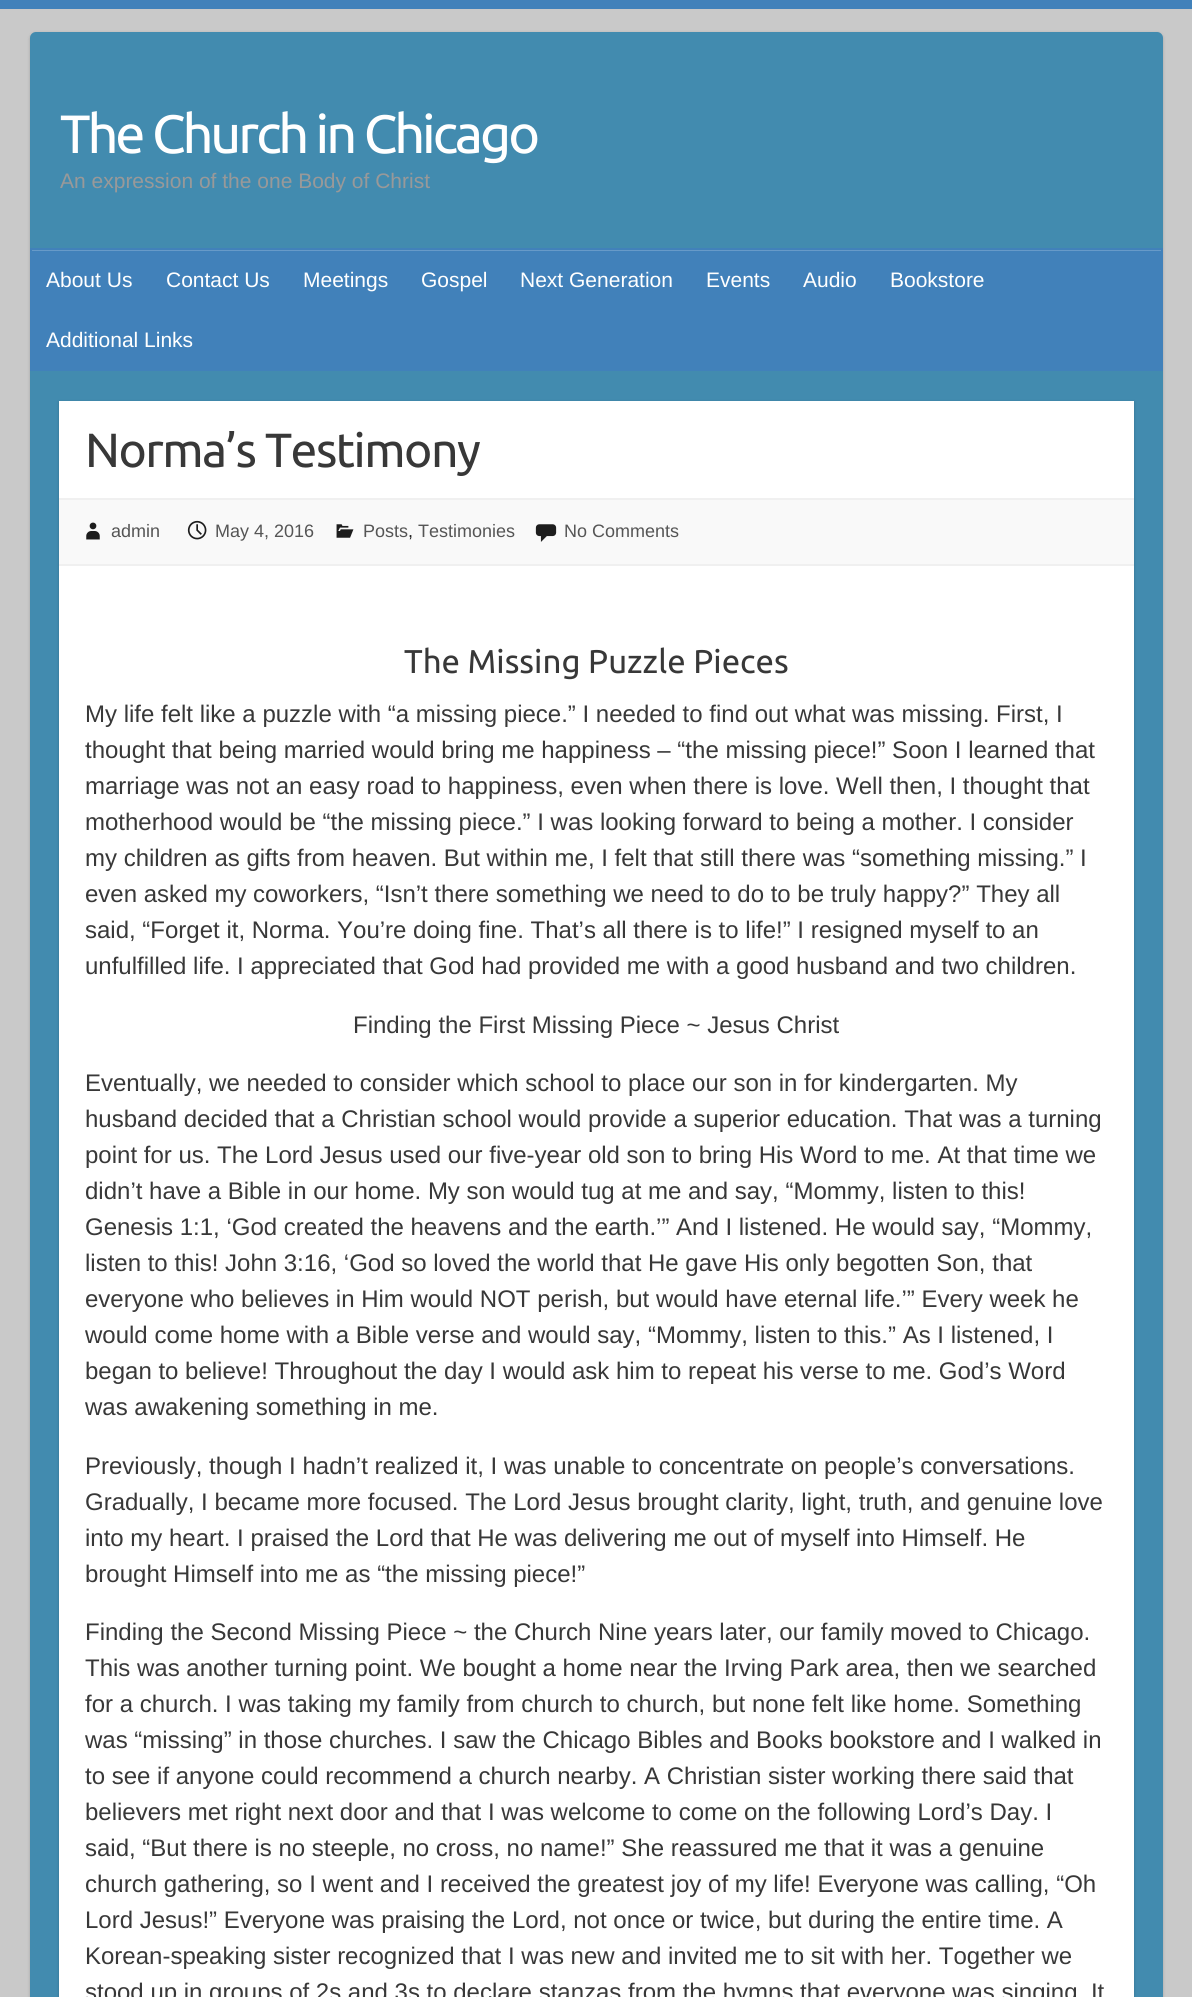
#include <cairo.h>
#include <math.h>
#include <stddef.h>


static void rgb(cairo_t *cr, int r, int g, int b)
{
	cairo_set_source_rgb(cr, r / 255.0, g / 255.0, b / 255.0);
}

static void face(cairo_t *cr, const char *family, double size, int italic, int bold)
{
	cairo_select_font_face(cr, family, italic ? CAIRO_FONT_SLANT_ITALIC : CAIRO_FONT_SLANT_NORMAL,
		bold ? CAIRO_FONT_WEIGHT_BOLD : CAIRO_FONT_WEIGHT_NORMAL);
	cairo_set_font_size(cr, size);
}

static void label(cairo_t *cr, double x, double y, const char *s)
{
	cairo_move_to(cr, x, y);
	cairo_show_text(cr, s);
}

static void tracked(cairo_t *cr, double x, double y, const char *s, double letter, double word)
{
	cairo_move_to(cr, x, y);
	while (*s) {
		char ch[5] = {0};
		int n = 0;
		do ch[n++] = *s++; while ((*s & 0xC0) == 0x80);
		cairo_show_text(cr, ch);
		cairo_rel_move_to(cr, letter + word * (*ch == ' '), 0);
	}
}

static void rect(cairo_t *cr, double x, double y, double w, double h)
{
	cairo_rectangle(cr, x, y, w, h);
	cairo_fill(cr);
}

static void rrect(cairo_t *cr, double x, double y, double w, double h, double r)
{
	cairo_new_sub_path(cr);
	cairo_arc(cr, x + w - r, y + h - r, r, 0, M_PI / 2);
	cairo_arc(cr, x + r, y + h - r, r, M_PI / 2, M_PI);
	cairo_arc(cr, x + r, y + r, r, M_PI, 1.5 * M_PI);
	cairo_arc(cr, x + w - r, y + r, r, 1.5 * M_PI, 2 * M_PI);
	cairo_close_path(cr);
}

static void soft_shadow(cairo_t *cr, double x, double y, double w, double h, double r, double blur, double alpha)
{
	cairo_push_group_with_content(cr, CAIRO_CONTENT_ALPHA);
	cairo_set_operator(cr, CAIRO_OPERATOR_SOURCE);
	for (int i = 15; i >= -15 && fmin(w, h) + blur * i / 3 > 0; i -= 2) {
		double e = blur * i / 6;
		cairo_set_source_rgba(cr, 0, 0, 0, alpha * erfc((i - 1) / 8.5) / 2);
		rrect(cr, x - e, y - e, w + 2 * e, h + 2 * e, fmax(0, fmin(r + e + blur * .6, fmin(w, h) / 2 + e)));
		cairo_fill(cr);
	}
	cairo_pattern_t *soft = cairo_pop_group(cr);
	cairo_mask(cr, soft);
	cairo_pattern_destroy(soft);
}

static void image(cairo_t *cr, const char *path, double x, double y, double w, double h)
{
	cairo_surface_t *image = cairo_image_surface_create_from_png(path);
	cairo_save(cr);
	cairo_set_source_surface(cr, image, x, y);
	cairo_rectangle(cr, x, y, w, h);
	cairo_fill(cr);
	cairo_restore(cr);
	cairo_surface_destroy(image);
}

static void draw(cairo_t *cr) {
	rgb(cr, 201, 201, 201);
	cairo_paint(cr);
	rgb(cr, 65, 129, 186);
	rect(cr, 0, 0, 1192, 9);
	rgb(cr, 0, 0, 0);
	soft_shadow(cr, 30, 33, 1133, 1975, 6, 1.5, 0.2);
	rgb(cr, 66, 139, 175);
	rrect(cr, 30, 32, 1133, 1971, 6);
	cairo_fill(cr);
	face(cr, "Ubuntu", 54, 0, 0);
	rgb(cr, 255, 255, 255);
	tracked(cr, 60, 153, "The Church in Chicago", -3, 0);
	face(cr, "Liberation Sans", 21, 0, 0);
	rgb(cr, 153, 153, 153);
	label(cr, 60, 188, "An expression of the one Body of Christ");
	rgb(cr, 65, 129, 186);
	rect(cr, 32, 251, 1129, 118);
	rgb(cr, 103, 154, 200);
	rect(cr, 32, 250, 1129, 1);
	cairo_rectangle(cr, 31, 249, 1131, 121);
	rgb(cr, 65, 129, 186);
	cairo_stroke(cr);
	rgb(cr, 255, 255, 255);
	label(cr, 46, 287, "About Us");
	label(cr, 166, 287, "Contact Us");
	label(cr, 303, 287, "Meetings");
	label(cr, 421, 287, "Gospel");
	label(cr, 520, 287, "Next Generation");
	label(cr, 706, 287, "Events");
	label(cr, 803, 287, "Audio");
	label(cr, 890, 287, "Bookstore");
	label(cr, 46, 347, "Additional Links");
	rgb(cr, 0, 0, 0);
	soft_shadow(cr, 59, 402, 1075, 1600, 0, 1.5, 0.2);
	rgb(cr, 255, 255, 255);
	rect(cr, 59, 401, 1075, 1596);
	face(cr, "Ubuntu", 48, 0, 0);
	rgb(cr, 56, 56, 56);
	tracked(cr, 85, 467, "Norma’s Testimony", -1.5, 0);
	rgb(cr, 249, 249, 249);
	rect(cr, 59, 500, 1075, 64);
	rgb(cr, 240, 240, 240);
	rect(cr, 59, 498, 1075, 2);
	rect(cr, 59, 564, 1075, 2);
	image(cr, "image0.png", 86, 522, 14, 18);
	face(cr, "Liberation Sans", 18, 0, 0);
	rgb(cr, 85, 85, 85);
	label(cr, 111, 537, "admin");
	image(cr, "image1.png", 187, 520, 20, 20);
	label(cr, 215, 537, "May 4, 2016");
	image(cr, "image2.png", 336, 524, 18, 14);
	label(cr, 363, 537, "Posts");
	rgb(cr, 29, 29, 29);
	label(cr, 408, 537, ",");
	rgb(cr, 85, 85, 85);
	label(cr, 418, 537, "Testimonies");
	image(cr, "image3.png", 535, 524, 22, 18);
	label(cr, 564, 537, "No Comments");
	face(cr, "Ubuntu", 33, 0, 0);
	rgb(cr, 56, 56, 56);
	label(cr, 404, 673, "The Missing Puzzle Pieces");
	face(cr, "Liberation Sans", 24, 0, 0);
	label(cr, 85, 722, "My life felt like a puzzle with “a missing piece.” I needed to find out what was missing. First, I");
	label(cr, 85, 758, "thought that being married would bring me happiness – “the missing piece!” Soon I learned that");
	label(cr, 85, 794, "marriage was not an easy road to happiness, even when there is love. Well then, I thought that");
	label(cr, 85, 830, "motherhood would be “the missing piece.” I was looking forward to being a mother. I consider");
	label(cr, 85, 866, "my children as gifts from heaven. But within me, I felt that still there was “something missing.” I");
	label(cr, 85, 902, "even asked my coworkers, “Isn’t there something we need to do to be truly happy?” They all");
	label(cr, 85, 938, "said, “Forget it, Norma. You’re doing fine. That’s all there is to life!” I resigned myself to an");
	label(cr, 85, 974, "unfulfilled life. I appreciated that God had provided me with a good husband and two children.");
	label(cr, 353, 1033, "Finding the First Missing Piece ~ Jesus Christ");
	label(cr, 85, 1091, "Eventually, we needed to consider which school to place our son in for kindergarten. My");
	label(cr, 85, 1127, "husband decided that a Christian school would provide a superior education. That was a turning");
	label(cr, 85, 1163, "point for us. The Lord Jesus used our five-year old son to bring His Word to me. At that time we");
	label(cr, 85, 1199, "didn’t have a Bible in our home. My son would tug at me and say, “Mommy, listen to this!");
	label(cr, 85, 1235, "Genesis 1:1, ‘God created the heavens and the earth.’” And I listened. He would say, “Mommy,");
	label(cr, 85, 1271, "listen to this! John 3:16, ‘God so loved the world that He gave His only begotten Son, that");
	label(cr, 85, 1307, "everyone who believes in Him would NOT perish, but would have eternal life.’” Every week he");
	label(cr, 85, 1343, "would come home with a Bible verse and would say, “Mommy, listen to this.” As I listened, I");
	label(cr, 85, 1379, "began to believe! Throughout the day I would ask him to repeat his verse to me. God’s Word");
	label(cr, 85, 1415, "was awakening something in me.");
	label(cr, 85, 1474, "Previously, though I hadn’t realized it, I was unable to concentrate on people’s conversations.");
	label(cr, 85, 1510, "Gradually, I became more focused. The Lord Jesus brought clarity, light, truth, and genuine love");
	label(cr, 85, 1546, "into my heart. I praised the Lord that He was delivering me out of myself into Himself. He");
	label(cr, 85, 1582, "brought Himself into me as “the missing piece!”");
	label(cr, 85, 1640, "Finding the Second Missing Piece ~ the Church Nine years later, our family moved to Chicago.");
	label(cr, 85, 1676, "This was another turning point. We bought a home near the Irving Park area, then we searched");
	label(cr, 85, 1712, "for a church. I was taking my family from church to church, but none felt like home. Something");
	label(cr, 85, 1748, "was “missing” in those churches. I saw the Chicago Bibles and Books bookstore and I walked in");
	label(cr, 85, 1784, "to see if anyone could recommend a church nearby. A Christian sister working there said that");
	label(cr, 85, 1820, "believers met right next door and that I was welcome to come on the following Lord’s Day. I");
	label(cr, 85, 1856, "said, “But there is no steeple, no cross, no name!” She reassured me that it was a genuine");
	label(cr, 85, 1892, "church gathering, so I went and I received the greatest joy of my life! Everyone was calling, “Oh");
	label(cr, 85, 1928, "Lord Jesus!” Everyone was praising the Lord, not once or twice, but during the entire time. A");
	label(cr, 85, 1964, "Korean-speaking sister recognized that I was new and invited me to sit with her. Together we");
	label(cr, 85, 2000, "stood up in groups of 2s and 3s to declare stanzas from the hymns that everyone was singing. It");
}

int main(void) {
	cairo_surface_t *surface = cairo_image_surface_create(CAIRO_FORMAT_RGB24, 1192, 1997);
	cairo_t *cr = cairo_create(surface);
	cairo_font_options_t *options = cairo_font_options_create();
	cairo_font_options_set_hint_metrics(options, CAIRO_HINT_METRICS_OFF);
	cairo_font_options_set_hint_style(options, CAIRO_HINT_STYLE_NONE);
	cairo_set_font_options(cr, options);
	cairo_set_miter_limit(cr, 4);
	draw(cr);
	cairo_surface_write_to_png(surface, "render.png");
	cairo_font_options_destroy(options);
	cairo_destroy(cr);
	cairo_surface_destroy(surface);
	return 0;
}
